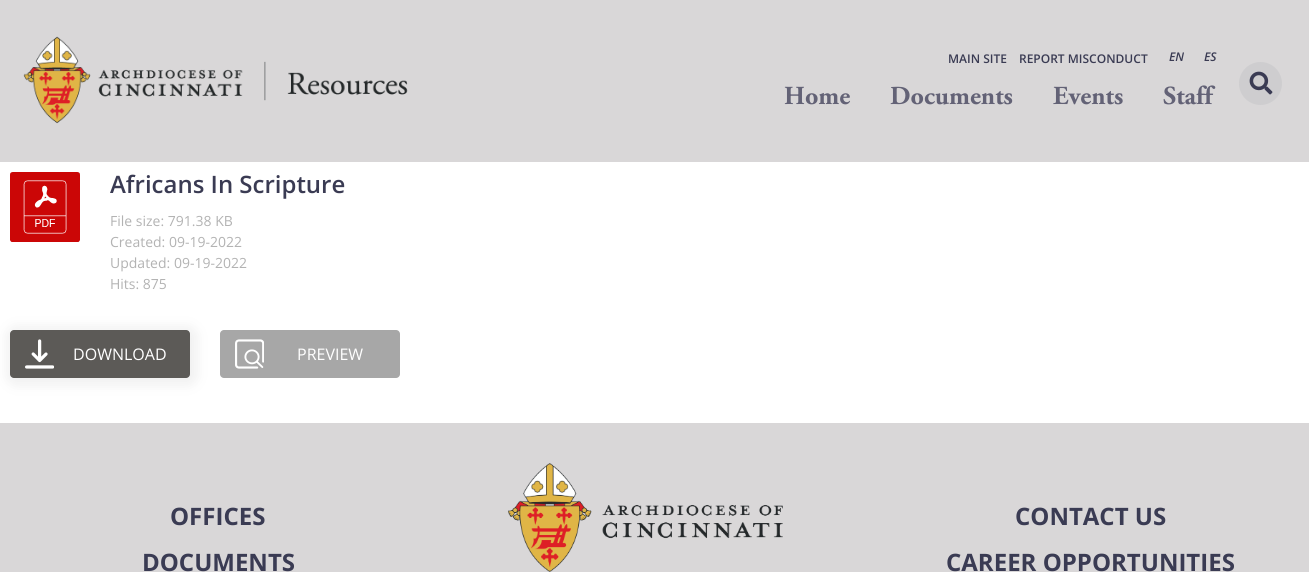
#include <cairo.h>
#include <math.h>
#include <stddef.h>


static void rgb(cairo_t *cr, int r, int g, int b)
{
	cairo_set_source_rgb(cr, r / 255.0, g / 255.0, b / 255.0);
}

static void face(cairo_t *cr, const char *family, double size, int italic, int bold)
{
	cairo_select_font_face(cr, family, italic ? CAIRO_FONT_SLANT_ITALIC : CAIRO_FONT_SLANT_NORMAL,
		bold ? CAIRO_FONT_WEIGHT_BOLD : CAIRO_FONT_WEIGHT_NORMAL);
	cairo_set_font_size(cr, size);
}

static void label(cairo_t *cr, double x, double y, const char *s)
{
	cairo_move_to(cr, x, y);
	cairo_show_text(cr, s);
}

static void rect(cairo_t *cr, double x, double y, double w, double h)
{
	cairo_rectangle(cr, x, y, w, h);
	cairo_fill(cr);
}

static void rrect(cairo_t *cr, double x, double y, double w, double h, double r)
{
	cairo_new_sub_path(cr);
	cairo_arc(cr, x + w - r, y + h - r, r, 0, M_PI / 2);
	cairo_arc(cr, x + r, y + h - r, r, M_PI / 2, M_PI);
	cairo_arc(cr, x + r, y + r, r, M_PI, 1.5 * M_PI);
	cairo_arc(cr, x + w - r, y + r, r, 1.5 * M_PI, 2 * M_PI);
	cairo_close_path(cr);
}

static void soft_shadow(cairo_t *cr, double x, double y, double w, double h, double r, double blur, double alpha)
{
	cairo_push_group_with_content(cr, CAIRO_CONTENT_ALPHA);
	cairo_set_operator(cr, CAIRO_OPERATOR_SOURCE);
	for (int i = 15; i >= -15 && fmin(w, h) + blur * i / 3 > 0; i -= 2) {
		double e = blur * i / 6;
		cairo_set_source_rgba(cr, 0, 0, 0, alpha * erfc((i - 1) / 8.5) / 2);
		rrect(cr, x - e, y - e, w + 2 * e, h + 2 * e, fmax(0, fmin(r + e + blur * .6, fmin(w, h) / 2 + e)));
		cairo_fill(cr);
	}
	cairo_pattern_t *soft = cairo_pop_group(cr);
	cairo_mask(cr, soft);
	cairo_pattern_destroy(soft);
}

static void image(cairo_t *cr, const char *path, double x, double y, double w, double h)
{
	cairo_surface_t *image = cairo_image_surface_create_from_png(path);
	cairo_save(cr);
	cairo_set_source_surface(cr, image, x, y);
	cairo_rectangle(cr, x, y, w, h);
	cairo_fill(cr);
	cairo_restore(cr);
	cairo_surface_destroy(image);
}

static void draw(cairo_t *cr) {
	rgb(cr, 255, 255, 255);
	cairo_paint(cr);
	rgb(cr, 217, 215, 216);
	rect(cr, 0, 0, 1309, 162);
	image(cr, "image0.png", 23, 36, 385, 88);
	face(cr, "Open Sans SemiBold", 12, 0, 0);
	rgb(cr, 58, 59, 83);
	label(cr, 948, 63, "MAIN SITE");
	label(cr, 1019, 63, "REPORT MISCONDUCT");
	face(cr, "Open Sans SemiBold", 12, 1, 0);
	label(cr, 1169, 61, "EN");
	label(cr, 1204, 61, "ES");
	face(cr, "Adobe Garamond", 26, 0, 1);
	rgb(cr, 99, 98, 118);
	label(cr, 784, 104, "Home");
	label(cr, 890, 104, "Documents");
	label(cr, 1053, 104, "Events");
	label(cr, 1163, 104, "Staff");
	rgb(cr, 206, 205, 207);
	cairo_new_path(cr);
	cairo_arc(cr, 1260.5, 83.5, 21.5, 0, 2 * M_PI);
	cairo_fill(cr);
	image(cr, "image1.png", 1249, 71, 24, 24);
	image(cr, "image2.png", 10, 172, 70, 70);
	face(cr, "Open Sans SemiBold", 24, 0, 0);
	rgb(cr, 58, 59, 83);
	label(cr, 110, 193, "Africans In Scripture");
	face(cr, "Open Sans", 14, 0, 0);
	rgb(cr, 179, 179, 179);
	label(cr, 110, 226, "File size: 791.38 KB");
	label(cr, 110, 247, "Created: 09-19-2022");
	label(cr, 110, 268, "Updated: 09-19-2022");
	label(cr, 110, 289, "Hits: 875");
	rgb(cr, 240, 240, 240);
	soft_shadow(cr, 7, 327, 190, 58, 9, 6, 1);
	rgb(cr, 92, 90, 87);
	rrect(cr, 10, 330, 180, 48, 4);
	cairo_fill(cr);
	image(cr, "image3.png", 25, 339, 29, 30);
	face(cr, "Open Sans", 16, 0, 0);
	rgb(cr, 255, 255, 255);
	label(cr, 73, 360, "DOWNLOAD");
	rgb(cr, 167, 167, 167);
	rrect(cr, 220, 330, 180, 48, 4);
	cairo_fill(cr);
	image(cr, "image4.png", 235, 339, 29, 30);
	rgb(cr, 255, 255, 255);
	label(cr, 297, 360, "PREVIEW");
	rgb(cr, 217, 215, 216);
	rect(cr, 0, 423, 1309, 149);
	face(cr, "Open Sans", 24, 0, 1);
	rgb(cr, 58, 59, 83);
	label(cr, 170, 525, "OFFICES");
	label(cr, 142, 571, "DOCUMENTS");
	image(cr, "image5.png", 508, 463, 275, 109);
	label(cr, 1015, 525, "CONTACT US");
	label(cr, 946, 571, "CAREER OPPORTUNITIES");
}

int main(void) {
	cairo_surface_t *surface = cairo_image_surface_create(CAIRO_FORMAT_RGB24, 1309, 572);
	cairo_t *cr = cairo_create(surface);
	cairo_font_options_t *options = cairo_font_options_create();
	cairo_font_options_set_hint_metrics(options, CAIRO_HINT_METRICS_OFF);
	cairo_font_options_set_hint_style(options, CAIRO_HINT_STYLE_NONE);
	cairo_set_font_options(cr, options);
	cairo_set_miter_limit(cr, 4);
	draw(cr);
	cairo_surface_write_to_png(surface, "render.png");
	cairo_font_options_destroy(options);
	cairo_destroy(cr);
	cairo_surface_destroy(surface);
	return 0;
}
